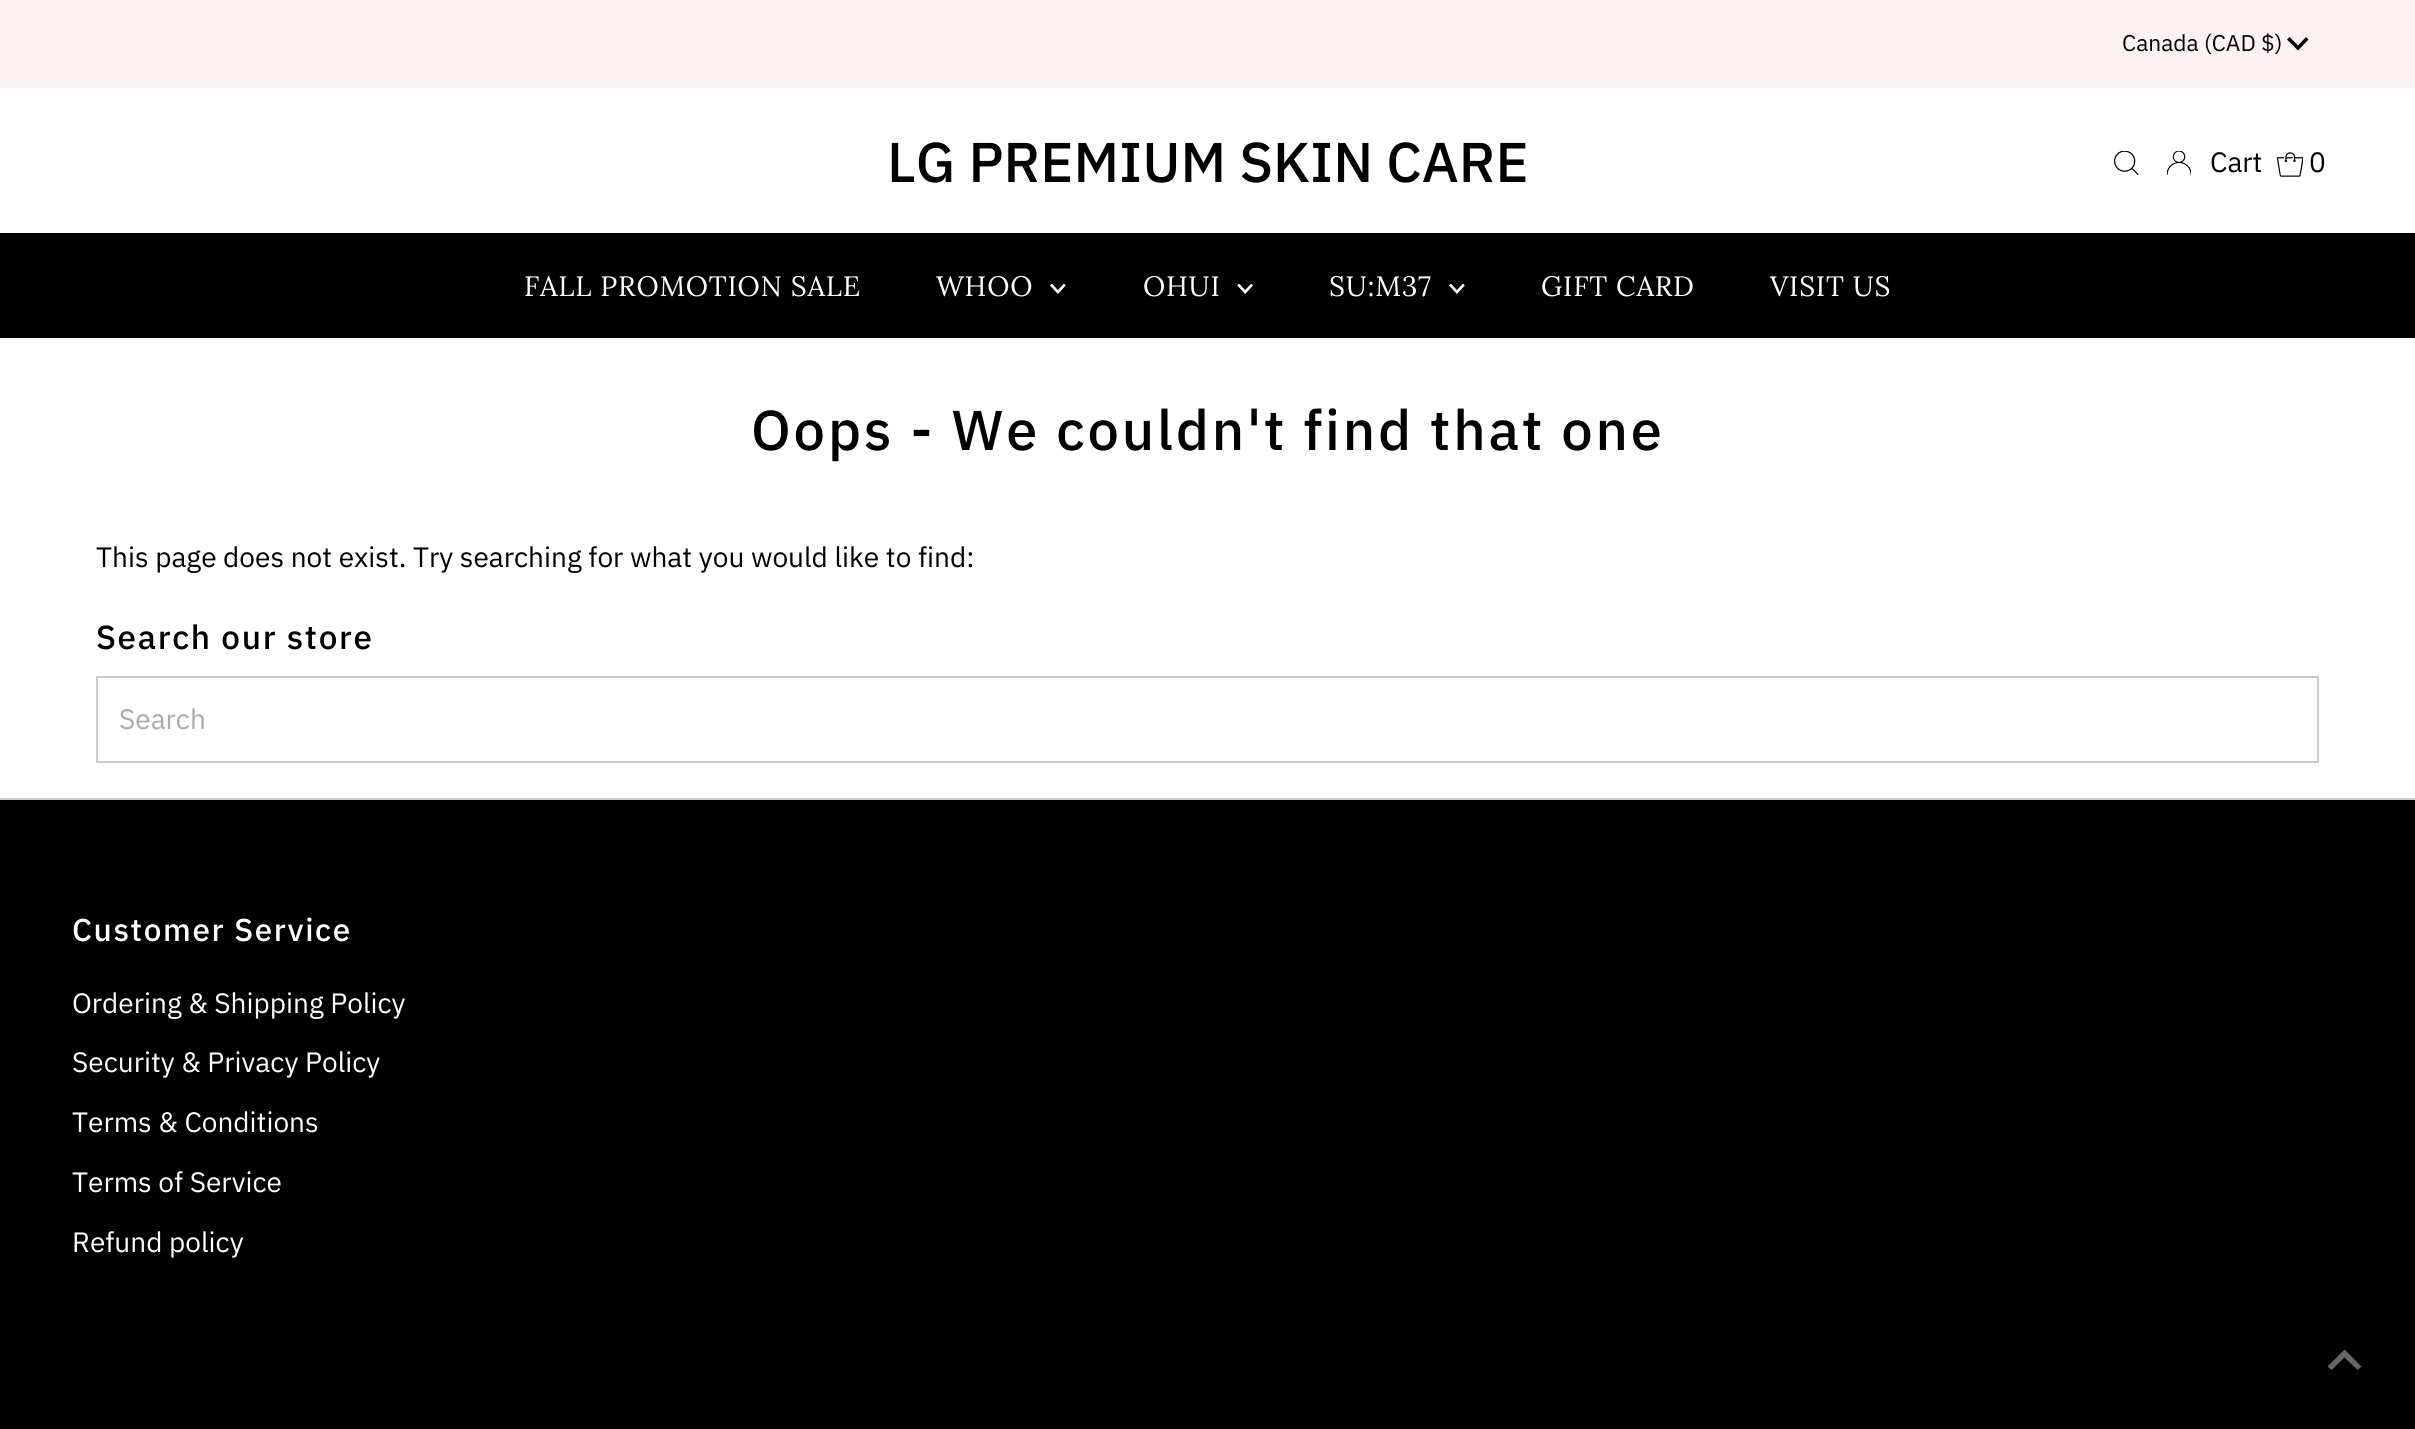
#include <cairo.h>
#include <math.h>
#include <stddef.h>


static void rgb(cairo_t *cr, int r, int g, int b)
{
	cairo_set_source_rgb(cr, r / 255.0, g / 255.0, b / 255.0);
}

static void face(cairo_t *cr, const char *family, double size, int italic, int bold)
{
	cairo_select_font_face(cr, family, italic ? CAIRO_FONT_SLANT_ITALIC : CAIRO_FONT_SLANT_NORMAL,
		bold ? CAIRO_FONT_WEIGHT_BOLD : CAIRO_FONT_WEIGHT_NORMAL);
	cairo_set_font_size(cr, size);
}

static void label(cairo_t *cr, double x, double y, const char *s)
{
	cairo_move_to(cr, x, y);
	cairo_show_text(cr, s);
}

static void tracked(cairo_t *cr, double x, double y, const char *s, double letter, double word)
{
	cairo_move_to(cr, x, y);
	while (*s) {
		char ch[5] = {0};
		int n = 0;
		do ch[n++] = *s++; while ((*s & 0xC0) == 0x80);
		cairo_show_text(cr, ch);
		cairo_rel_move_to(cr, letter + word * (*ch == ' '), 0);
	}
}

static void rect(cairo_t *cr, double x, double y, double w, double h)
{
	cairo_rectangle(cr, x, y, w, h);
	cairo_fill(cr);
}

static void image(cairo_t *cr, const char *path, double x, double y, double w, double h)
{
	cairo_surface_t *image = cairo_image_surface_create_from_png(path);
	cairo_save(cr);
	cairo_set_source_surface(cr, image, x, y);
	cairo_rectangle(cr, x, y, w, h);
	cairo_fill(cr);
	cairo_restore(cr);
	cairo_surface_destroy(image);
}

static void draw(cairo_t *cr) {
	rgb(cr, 255, 255, 255);
	cairo_paint(cr);
	rgb(cr, 253, 242, 243);
	rect(cr, 0, 0, 2415, 88);
	face(cr, "IBM Plex Sans", 22.75, 0, 0);
	rgb(cr, 0, 0, 0);
	label(cr, 2122, 51, "Canada (CAD $)");
	cairo_new_path(cr);
	cairo_move_to(cr, 2306, 37);
	cairo_line_to(cr, 2298, 45.5);
	cairo_line_to(cr, 2289.5, 37);
	cairo_line_to(cr, 2287, 39.5);
	cairo_line_to(cr, 2298, 50.5);
	cairo_line_to(cr, 2308.5, 39.5);
	cairo_close_path(cr);
	cairo_fill(cr);
	face(cr, "IBM Plex Sans Medium", 56, 0, 0);
	label(cr, 887, 182, "LG PREMIUM SKIN CARE");
	image(cr, "image0.png", 2114, 151, 25, 24);
	image(cr, "image1.png", 2167, 151, 24, 24);
	face(cr, "IBM Plex Sans", 28, 0, 0);
	label(cr, 2210, 172, "Cart");
	image(cr, "image2.png", 2277, 152, 26, 25);
	label(cr, 2309, 172, "0");
	rect(cr, 0, 233, 2415, 105);
	face(cr, "Lora", 28, 0, 0);
	rgb(cr, 255, 255, 255);
	tracked(cr, 524, 296, "FALL PROMOTION SALE", 0.75, 0);
	tracked(cr, 936, 296, "WHOO", 0.75, 0);
	image(cr, "image3.png", 1050, 284, 16, 10);
	tracked(cr, 1143, 296, "OHUI", 0.75, 0);
	image(cr, "image4.png", 1237, 284, 16, 10);
	tracked(cr, 1329, 296, "SU:M37", 0.75, 0);
	image(cr, "image3.png", 1449, 284, 16, 10);
	tracked(cr, 1541, 296, "GIFT CARD", 0.75, 0);
	tracked(cr, 1770, 296, "VISIT US", 0.75, 0);
	face(cr, "IBM Plex Sans Medium", 56, 0, 0);
	rgb(cr, 0, 0, 0);
	tracked(cr, 751, 450, "Oops - We couldn't find that one", 2.8, 0);
	face(cr, "IBM Plex Sans", 28, 0, 0);
	label(cr, 96, 567, "This page does not exist. Try searching for what you would like to find:");
	face(cr, "IBM Plex Sans Medium", 33.25, 0, 0);
	tracked(cr, 96, 649, "Search our store", 1.7, 0);
	cairo_rectangle(cr, 97, 677, 2221, 85);
	rgb(cr, 204, 204, 204);
	cairo_stroke(cr);
	face(cr, "IBM Plex Sans", 28, 0, 0);
	rgb(cr, 170, 170, 170);
	label(cr, 119, 729, "Search");
	rgb(cr, 0, 0, 0);
	rect(cr, 0, 800, 2415, 629);
	rgb(cr, 204, 204, 204);
	rect(cr, 0, 798, 2415, 2);
	face(cr, "IBM Plex Sans Medium", 31.5, 0, 0);
	rgb(cr, 255, 255, 255);
	tracked(cr, 72, 941, "Customer Service", 1.6, 0);
	face(cr, "IBM Plex Sans", 28, 0, 0);
	label(cr, 72, 1013, "Ordering & Shipping Policy");
	label(cr, 72, 1072, "Security & Privacy Policy");
	label(cr, 72, 1132, "Terms & Conditions");
	label(cr, 72, 1192, "Terms of Service");
	label(cr, 72, 1252, "Refund policy");
	rgb(cr, 102, 102, 102);
	cairo_new_path(cr);
	cairo_move_to(cr, 2344.5, 1349.5);
	cairo_line_to(cr, 2327.5, 1366.5);
	cairo_line_to(cr, 2331.5, 1370);
	cairo_line_to(cr, 2344.5, 1357.5);
	cairo_line_to(cr, 2357.5, 1370);
	cairo_line_to(cr, 2361.5, 1366.5);
	cairo_close_path(cr);
	cairo_fill(cr);
}

int main(void) {
	cairo_surface_t *surface = cairo_image_surface_create(CAIRO_FORMAT_RGB24, 2415, 1429);
	cairo_t *cr = cairo_create(surface);
	cairo_font_options_t *options = cairo_font_options_create();
	cairo_font_options_set_hint_metrics(options, CAIRO_HINT_METRICS_OFF);
	cairo_font_options_set_hint_style(options, CAIRO_HINT_STYLE_NONE);
	cairo_set_font_options(cr, options);
	cairo_set_miter_limit(cr, 4);
	draw(cr);
	cairo_surface_write_to_png(surface, "render.png");
	cairo_font_options_destroy(options);
	cairo_destroy(cr);
	cairo_surface_destroy(surface);
	return 0;
}
